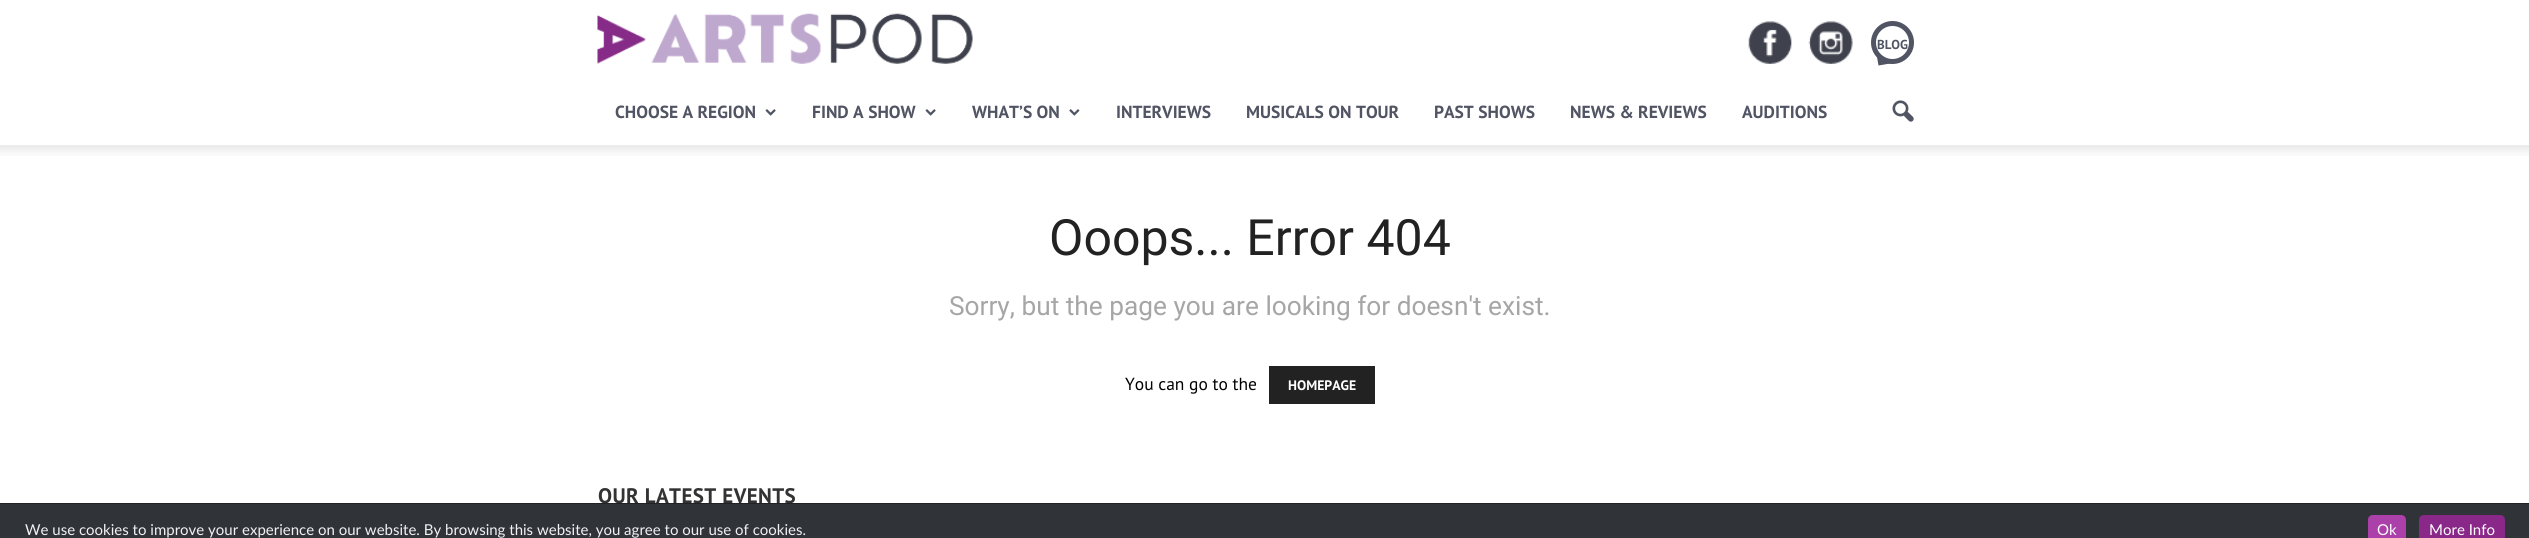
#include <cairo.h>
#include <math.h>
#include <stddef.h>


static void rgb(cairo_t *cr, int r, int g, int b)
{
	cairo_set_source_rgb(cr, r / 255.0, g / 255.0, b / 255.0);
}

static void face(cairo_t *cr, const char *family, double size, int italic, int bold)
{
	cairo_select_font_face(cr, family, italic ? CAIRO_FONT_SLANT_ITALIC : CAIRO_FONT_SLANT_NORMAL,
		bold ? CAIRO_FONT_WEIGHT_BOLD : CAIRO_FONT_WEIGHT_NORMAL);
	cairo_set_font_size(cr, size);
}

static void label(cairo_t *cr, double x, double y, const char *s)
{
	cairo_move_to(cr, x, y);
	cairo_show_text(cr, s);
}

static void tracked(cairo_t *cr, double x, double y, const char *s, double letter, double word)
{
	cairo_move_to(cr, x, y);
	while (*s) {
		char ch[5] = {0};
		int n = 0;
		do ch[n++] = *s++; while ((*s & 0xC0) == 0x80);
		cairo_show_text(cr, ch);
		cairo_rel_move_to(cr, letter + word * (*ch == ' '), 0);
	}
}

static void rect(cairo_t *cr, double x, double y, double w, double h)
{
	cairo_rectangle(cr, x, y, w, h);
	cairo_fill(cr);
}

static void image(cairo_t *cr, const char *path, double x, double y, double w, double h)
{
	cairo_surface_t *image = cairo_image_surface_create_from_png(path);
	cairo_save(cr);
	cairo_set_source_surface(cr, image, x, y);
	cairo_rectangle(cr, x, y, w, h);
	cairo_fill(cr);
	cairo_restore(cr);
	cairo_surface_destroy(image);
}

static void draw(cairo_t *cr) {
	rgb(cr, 255, 255, 255);
	cairo_paint(cr);
	image(cr, "image0.png", 597, 13, 376, 51);
	image(cr, "image1.png", 1748, 21, 44, 43);
	image(cr, "image2.png", 1808, 21, 45, 43);
	cairo_arc(cr, 1892.5, 42.5, 19, 0, 2 * M_PI);
	rgb(cr, 81, 84, 99);
	cairo_set_line_width(cr, 5);
	cairo_stroke(cr);
	face(cr, "PT Sans", 13, 0, 1);
	label(cr, 1877, 49, "BLOG");
	cairo_new_path(cr);
	cairo_move_to(cr, 1876, 51.5);
	cairo_line_to(cr, 1892.5, 63);
	cairo_line_to(cr, 1878.5, 65.5);
	cairo_close_path(cr);
	cairo_fill(cr);
	face(cr, "PT Sans", 17.5, 0, 1);
	label(cr, 615, 118, "CHOOSE A REGION");
	image(cr, "image3.png", 765, 109, 11, 7);
	label(cr, 812, 118, "FIND A SHOW");
	image(cr, "image3.png", 925, 109, 11, 7);
	label(cr, 972, 118, "WHAT’S ON");
	image(cr, "image4.png", 1069, 109, 11, 7);
	label(cr, 1116, 118, "INTERVIEWS");
	label(cr, 1246, 118, "MUSICALS ON TOUR");
	label(cr, 1434, 118, "PAST SHOWS");
	label(cr, 1570, 118, "NEWS & REVIEWS");
	label(cr, 1742, 118, "AUDITIONS");
	image(cr, "image5.png", 1892, 100, 22, 22);
	image(cr, "image6.png", 0, 145, 2529, 11);
	face(cr, "Roboto", 50, 0, 0);
	rgb(cr, 34, 34, 34);
	label(cr, 1049, 255, "Ooops... Error 404");
	face(cr, "Roboto", 26.25, 0, 0);
	rgb(cr, 166, 166, 166);
	label(cr, 949, 315, "Sorry, but the page you are looking for doesn't exist.");
	face(cr, "PT Sans", 17.5, 0, 0);
	rgb(cr, 0, 0, 0);
	label(cr, 1125, 390, "You can go to the");
	rgb(cr, 34, 34, 34);
	rect(cr, 1269, 366, 106, 38);
	face(cr, "PT Sans", 13.75, 0, 1);
	rgb(cr, 255, 255, 255);
	label(cr, 1288, 390, "HOMEPAGE");
	face(cr, "PT Sans", 21, 0, 1);
	rgb(cr, 51, 51, 51);
	tracked(cr, 598, 503, "OUR LATEST EVENTS", 0.4, 0);
	rgb(cr, 32, 34, 38);
	rect(cr, 0, 503, 2529, 1);
	rgb(cr, 48, 51, 55);
	rect(cr, 0, 504, 2529, 34);
	face(cr, "Lato", 15, 0, 0);
	rgb(cr, 241, 241, 243);
	label(cr, 25, 535, "We use cookies to improve your experience on our website. By browsing this website, you agree to our use of cookies.");
	rgb(cr, 171, 64, 170);
	cairo_new_path(cr);
	cairo_move_to(cr, 2373, 515);
	cairo_line_to(cr, 2401, 515);
	cairo_curve_to(cr, 2404, 515, 2406, 517, 2406, 520);
	cairo_line_to(cr, 2406, 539);
	cairo_line_to(cr, 2368, 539);
	cairo_line_to(cr, 2368, 520);
	cairo_curve_to(cr, 2368, 517, 2370, 515, 2373, 515);
	cairo_close_path(cr);
	cairo_fill(cr);
	rgb(cr, 255, 255, 255);
	label(cr, 2377, 535, "Ok");
	rgb(cr, 138, 40, 137);
	cairo_new_path(cr);
	cairo_move_to(cr, 2424, 515);
	cairo_line_to(cr, 2500, 515);
	cairo_curve_to(cr, 2503, 515, 2505, 517, 2505, 520);
	cairo_line_to(cr, 2505, 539);
	cairo_line_to(cr, 2419, 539);
	cairo_line_to(cr, 2419, 520);
	cairo_curve_to(cr, 2419, 517, 2421, 515, 2424, 515);
	cairo_close_path(cr);
	cairo_fill(cr);
	rgb(cr, 255, 255, 255);
	label(cr, 2429, 535, "More Info");
}

int main(void) {
	cairo_surface_t *surface = cairo_image_surface_create(CAIRO_FORMAT_RGB24, 2529, 538);
	cairo_t *cr = cairo_create(surface);
	cairo_font_options_t *options = cairo_font_options_create();
	cairo_font_options_set_hint_metrics(options, CAIRO_HINT_METRICS_OFF);
	cairo_font_options_set_hint_style(options, CAIRO_HINT_STYLE_NONE);
	cairo_set_font_options(cr, options);
	cairo_set_miter_limit(cr, 4);
	draw(cr);
	cairo_surface_write_to_png(surface, "render.png");
	cairo_font_options_destroy(options);
	cairo_destroy(cr);
	cairo_surface_destroy(surface);
	return 0;
}
